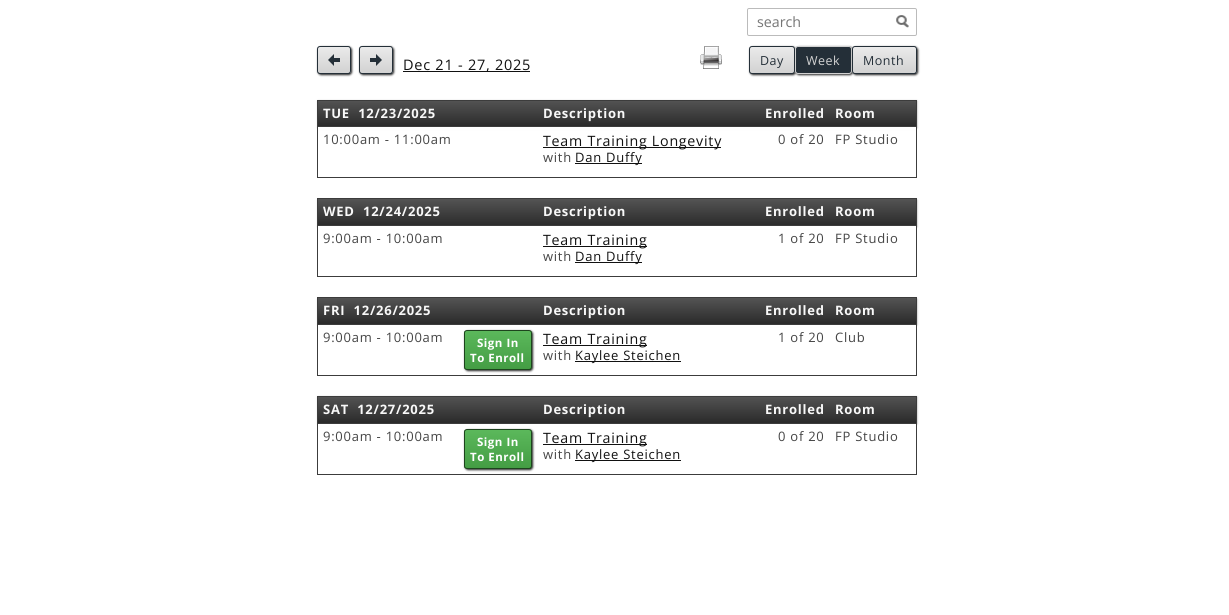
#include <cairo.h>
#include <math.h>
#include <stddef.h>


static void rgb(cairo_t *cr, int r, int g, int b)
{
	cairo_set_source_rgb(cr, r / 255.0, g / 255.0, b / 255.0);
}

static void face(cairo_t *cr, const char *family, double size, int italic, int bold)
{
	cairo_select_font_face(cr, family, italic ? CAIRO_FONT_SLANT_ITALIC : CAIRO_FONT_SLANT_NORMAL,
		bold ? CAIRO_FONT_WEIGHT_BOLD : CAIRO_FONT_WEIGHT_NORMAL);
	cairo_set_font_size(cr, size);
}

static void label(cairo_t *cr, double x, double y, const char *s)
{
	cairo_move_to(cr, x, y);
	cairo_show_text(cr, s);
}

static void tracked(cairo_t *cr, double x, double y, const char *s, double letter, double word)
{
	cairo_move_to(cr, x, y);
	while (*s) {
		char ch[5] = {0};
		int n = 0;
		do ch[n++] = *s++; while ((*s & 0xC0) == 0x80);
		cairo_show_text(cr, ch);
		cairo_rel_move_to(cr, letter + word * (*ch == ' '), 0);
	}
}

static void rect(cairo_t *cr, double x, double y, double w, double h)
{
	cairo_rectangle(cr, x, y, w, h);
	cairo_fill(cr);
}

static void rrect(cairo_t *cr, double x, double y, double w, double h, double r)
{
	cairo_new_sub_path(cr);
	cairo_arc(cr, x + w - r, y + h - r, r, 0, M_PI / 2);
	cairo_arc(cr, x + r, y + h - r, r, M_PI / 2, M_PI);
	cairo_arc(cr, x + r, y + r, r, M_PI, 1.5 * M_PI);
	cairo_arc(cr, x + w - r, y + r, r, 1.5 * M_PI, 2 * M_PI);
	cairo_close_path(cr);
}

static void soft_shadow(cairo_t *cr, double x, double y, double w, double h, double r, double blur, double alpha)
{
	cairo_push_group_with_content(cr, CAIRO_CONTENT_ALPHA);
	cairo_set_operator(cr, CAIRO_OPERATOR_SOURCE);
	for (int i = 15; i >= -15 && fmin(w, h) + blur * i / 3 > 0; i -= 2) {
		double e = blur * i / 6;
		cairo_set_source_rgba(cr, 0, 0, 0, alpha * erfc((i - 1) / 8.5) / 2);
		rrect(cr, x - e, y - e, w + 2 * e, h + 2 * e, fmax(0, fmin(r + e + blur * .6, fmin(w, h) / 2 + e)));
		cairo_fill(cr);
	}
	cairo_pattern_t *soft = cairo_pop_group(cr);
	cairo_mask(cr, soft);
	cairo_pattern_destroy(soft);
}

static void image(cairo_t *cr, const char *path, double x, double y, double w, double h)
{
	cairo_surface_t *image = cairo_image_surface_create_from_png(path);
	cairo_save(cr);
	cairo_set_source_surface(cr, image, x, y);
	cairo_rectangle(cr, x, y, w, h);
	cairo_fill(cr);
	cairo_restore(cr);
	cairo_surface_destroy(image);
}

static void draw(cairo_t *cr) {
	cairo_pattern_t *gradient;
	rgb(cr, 255, 255, 255);
	cairo_paint(cr);
	rrect(cr, 747.5, 8.5, 169, 27, 1.5);
	rgb(cr, 187, 187, 187);
	cairo_set_line_width(cr, 1);
	cairo_stroke(cr);
	face(cr, "Open Sans", 14.25, 0, 0);
	rgb(cr, 117, 117, 117);
	label(cr, 757, 27, "search");
	image(cr, "image0.png", 896, 15, 13, 13);
	rgb(cr, 41, 41, 41);
	soft_shadow(cr, 318, 47, 34, 28, 3, 1, 1);
	cairo_save(cr);
	rrect(cr, 317, 46, 34, 28, 3);
	cairo_clip(cr);
	gradient = cairo_pattern_create_linear(334, 47, 334, 73);
	cairo_pattern_add_color_stop_rgba(gradient, 0, 0.918, 0.918, 0.918, 1);
	cairo_pattern_add_color_stop_rgba(gradient, 1, 0.824, 0.824, 0.824, 1);
	cairo_set_source(cr, gradient);
	cairo_pattern_destroy(gradient);
	rect(cr, 317, 47, 34, 26);
	cairo_restore(cr);
	rrect(cr, 317.5, 46.5, 33, 27, 2.5);
	rgb(cr, 36, 47, 56);
	cairo_stroke(cr);
	cairo_new_path(cr);
	cairo_move_to(cr, 334, 54);
	cairo_line_to(cr, 334, 66);
	cairo_line_to(cr, 328, 60);
	cairo_close_path(cr);
	cairo_fill(cr);
	rect(cr, 334, 58, 6, 4);
	rgb(cr, 41, 41, 41);
	soft_shadow(cr, 360, 47, 34, 28, 3, 1, 1);
	cairo_save(cr);
	rrect(cr, 359, 46, 34, 28, 3);
	cairo_clip(cr);
	gradient = cairo_pattern_create_linear(376, 47, 376, 73);
	cairo_pattern_add_color_stop_rgba(gradient, 0, 0.918, 0.918, 0.918, 1);
	cairo_pattern_add_color_stop_rgba(gradient, 1, 0.824, 0.824, 0.824, 1);
	cairo_set_source(cr, gradient);
	cairo_pattern_destroy(gradient);
	rect(cr, 359, 47, 34, 26);
	cairo_restore(cr);
	rrect(cr, 359.5, 46.5, 33, 27, 2.5);
	rgb(cr, 36, 47, 56);
	cairo_stroke(cr);
	rect(cr, 370, 58, 6, 4);
	cairo_new_path(cr);
	cairo_move_to(cr, 376, 66);
	cairo_line_to(cr, 376, 54);
	cairo_line_to(cr, 382, 60);
	cairo_close_path(cr);
	cairo_fill(cr);
	rgb(cr, 17, 17, 17);
	rect(cr, 403, 71, 127, 1);
	face(cr, "Open Sans", 14.5, 0, 0);
	tracked(cr, 403, 70, "Dec 21 - 27, 2025", 0.75, 0);
	image(cr, "image1.png", 700, 46, 22, 23);
	rgb(cr, 41, 41, 41);
	soft_shadow(cr, 750, 47, 46, 28, 3, 1, 1);
	cairo_save(cr);
	rrect(cr, 749, 46, 46, 28, 3);
	cairo_clip(cr);
	gradient = cairo_pattern_create_linear(772, 47, 772, 73);
	cairo_pattern_add_color_stop_rgba(gradient, 0, 0.918, 0.918, 0.918, 1);
	cairo_pattern_add_color_stop_rgba(gradient, 1, 0.824, 0.824, 0.824, 1);
	cairo_set_source(cr, gradient);
	cairo_pattern_destroy(gradient);
	rect(cr, 749, 47, 46, 26);
	cairo_restore(cr);
	rrect(cr, 749.5, 46.5, 45, 27, 2.5);
	rgb(cr, 36, 47, 56);
	cairo_stroke(cr);
	face(cr, "Open Sans", 12.5, 0, 0);
	tracked(cr, 760, 65, "Day", 0.5, 0);
	rgb(cr, 41, 41, 41);
	soft_shadow(cr, 796, 47, 57, 28, 3, 1, 1);
	rgb(cr, 36, 47, 56);
	rrect(cr, 795.5, 46.5, 56, 27, 2.5);
	cairo_fill_preserve(cr);
	rgb(cr, 210, 210, 210);
	cairo_stroke(cr);
	tracked(cr, 806, 65, "Week", 0.5, 0);
	rgb(cr, 41, 41, 41);
	soft_shadow(cr, 853, 47, 65, 28, 3, 1, 1);
	cairo_save(cr);
	rrect(cr, 852, 46, 65, 28, 3);
	cairo_clip(cr);
	gradient = cairo_pattern_create_linear(885, 47, 885, 73);
	cairo_pattern_add_color_stop_rgba(gradient, 0, 0.918, 0.918, 0.918, 1);
	cairo_pattern_add_color_stop_rgba(gradient, 1, 0.824, 0.824, 0.824, 1);
	cairo_set_source(cr, gradient);
	cairo_pattern_destroy(gradient);
	rect(cr, 852, 47, 65, 26);
	cairo_restore(cr);
	rrect(cr, 852.5, 46.5, 64, 27, 2.5);
	rgb(cr, 36, 47, 56);
	cairo_stroke(cr);
	tracked(cr, 863, 65, "Month", 0.5, 0);
	rgb(cr, 153, 153, 153);
	soft_shadow(cr, 318, 101, 599, 27, 0, 1, 1);
	rgb(cr, 60, 60, 60);
	rect(cr, 317, 100, 600, 1);
	rect(cr, 916, 126, 1, 52);
	rect(cr, 916, 100, 1, 27);
	rect(cr, 317, 177, 600, 1);
	rect(cr, 317, 126, 1, 52);
	rect(cr, 317, 126, 600, 1);
	rect(cr, 317, 100, 1, 27);
	gradient = cairo_pattern_create_linear(388, 100, 388, 127);
	cairo_pattern_add_color_stop_rgba(gradient, 0, 0.329, 0.329, 0.329, 1);
	cairo_pattern_add_color_stop_rgba(gradient, 1, 0.165, 0.165, 0.165, 1);
	cairo_set_source(cr, gradient);
	cairo_pattern_destroy(gradient);
	rect(cr, 318, 101, 140, 25);
	face(cr, "Open Sans", 13, 0, 1);
	rgb(cr, 248, 248, 248);
	tracked(cr, 323, 118, "TUE  12/23/2025", 0.75, 0);
	gradient = cairo_pattern_create_linear(498, 100, 498, 127);
	cairo_pattern_add_color_stop_rgba(gradient, 0, 0.329, 0.329, 0.329, 1);
	cairo_pattern_add_color_stop_rgba(gradient, 1, 0.165, 0.165, 0.165, 1);
	cairo_set_source(cr, gradient);
	cairo_pattern_destroy(gradient);
	rect(cr, 458, 101, 80, 25);
	gradient = cairo_pattern_create_linear(643, 100, 643, 127);
	cairo_pattern_add_color_stop_rgba(gradient, 0, 0.329, 0.329, 0.329, 1);
	cairo_pattern_add_color_stop_rgba(gradient, 1, 0.165, 0.165, 0.165, 1);
	cairo_set_source(cr, gradient);
	cairo_pattern_destroy(gradient);
	rect(cr, 538, 101, 210, 25);
	rgb(cr, 248, 248, 248);
	tracked(cr, 543, 118, "Description", 0.75, 0);
	gradient = cairo_pattern_create_linear(789, 100, 789, 127);
	cairo_pattern_add_color_stop_rgba(gradient, 0, 0.329, 0.329, 0.329, 1);
	cairo_pattern_add_color_stop_rgba(gradient, 1, 0.165, 0.165, 0.165, 1);
	cairo_set_source(cr, gradient);
	cairo_pattern_destroy(gradient);
	rect(cr, 748, 101, 82, 25);
	rgb(cr, 248, 248, 248);
	tracked(cr, 765, 118, "Enrolled", 0.75, 0);
	gradient = cairo_pattern_create_linear(873, 100, 873, 127);
	cairo_pattern_add_color_stop_rgba(gradient, 0, 0.329, 0.329, 0.329, 1);
	cairo_pattern_add_color_stop_rgba(gradient, 1, 0.165, 0.165, 0.165, 1);
	cairo_set_source(cr, gradient);
	cairo_pattern_destroy(gradient);
	rect(cr, 830, 101, 86, 25);
	rgb(cr, 248, 248, 248);
	tracked(cr, 835, 118, "Room", 0.75, 0);
	rgb(cr, 255, 255, 255);
	rect(cr, 318, 127, 598, 3);
	face(cr, "Open Sans", 13, 0, 0);
	rgb(cr, 68, 68, 68);
	tracked(cr, 323, 144, "10:00am - 11:00am", 0.75, 0);
	rgb(cr, 17, 17, 17);
	rect(cr, 543, 147, 178, 1);
	face(cr, "Open Sans", 14.25, 0, 0);
	tracked(cr, 543, 146, "Team Training Longevity", 0.75, 0);
	face(cr, "Open Sans", 13, 0, 0);
	rgb(cr, 68, 68, 68);
	tracked(cr, 543, 162, "with", 0.75, 0);
	rgb(cr, 17, 17, 17);
	rect(cr, 575, 163, 67, 1);
	tracked(cr, 575, 162, "Dan Duffy", 0.75, 0);
	rgb(cr, 68, 68, 68);
	tracked(cr, 778, 144, "0 of 20", 0.75, 0);
	tracked(cr, 835, 144, "FP Studio", 0.75, 0);
	rgb(cr, 153, 153, 153);
	soft_shadow(cr, 318, 200, 599, 27, 0, 1, 1);
	rgb(cr, 60, 60, 60);
	rect(cr, 317, 198, 600, 1);
	rect(cr, 916, 225, 1, 52);
	rect(cr, 916, 198, 1, 28);
	rect(cr, 317, 276, 600, 1);
	rect(cr, 317, 225, 1, 52);
	rect(cr, 317, 225, 600, 1);
	rect(cr, 317, 198, 1, 28);
	gradient = cairo_pattern_create_linear(388, 199, 388, 226);
	cairo_pattern_add_color_stop_rgba(gradient, 0, 0.329, 0.329, 0.329, 1);
	cairo_pattern_add_color_stop_rgba(gradient, 1, 0.165, 0.165, 0.165, 1);
	cairo_set_source(cr, gradient);
	cairo_pattern_destroy(gradient);
	rect(cr, 318, 199, 140, 26);
	face(cr, "Open Sans", 13, 0, 1);
	rgb(cr, 248, 248, 248);
	tracked(cr, 323, 216, "WED  12/24/2025", 0.75, 0);
	gradient = cairo_pattern_create_linear(498, 199, 498, 226);
	cairo_pattern_add_color_stop_rgba(gradient, 0, 0.329, 0.329, 0.329, 1);
	cairo_pattern_add_color_stop_rgba(gradient, 1, 0.165, 0.165, 0.165, 1);
	cairo_set_source(cr, gradient);
	cairo_pattern_destroy(gradient);
	rect(cr, 458, 199, 80, 26);
	gradient = cairo_pattern_create_linear(643, 199, 643, 226);
	cairo_pattern_add_color_stop_rgba(gradient, 0, 0.329, 0.329, 0.329, 1);
	cairo_pattern_add_color_stop_rgba(gradient, 1, 0.165, 0.165, 0.165, 1);
	cairo_set_source(cr, gradient);
	cairo_pattern_destroy(gradient);
	rect(cr, 538, 199, 210, 26);
	rgb(cr, 248, 248, 248);
	tracked(cr, 543, 216, "Description", 0.75, 0);
	gradient = cairo_pattern_create_linear(789, 199, 789, 226);
	cairo_pattern_add_color_stop_rgba(gradient, 0, 0.329, 0.329, 0.329, 1);
	cairo_pattern_add_color_stop_rgba(gradient, 1, 0.165, 0.165, 0.165, 1);
	cairo_set_source(cr, gradient);
	cairo_pattern_destroy(gradient);
	rect(cr, 748, 199, 82, 26);
	rgb(cr, 248, 248, 248);
	tracked(cr, 765, 216, "Enrolled", 0.75, 0);
	gradient = cairo_pattern_create_linear(873, 199, 873, 226);
	cairo_pattern_add_color_stop_rgba(gradient, 0, 0.329, 0.329, 0.329, 1);
	cairo_pattern_add_color_stop_rgba(gradient, 1, 0.165, 0.165, 0.165, 1);
	cairo_set_source(cr, gradient);
	cairo_pattern_destroy(gradient);
	rect(cr, 830, 199, 86, 26);
	rgb(cr, 248, 248, 248);
	tracked(cr, 835, 216, "Room", 0.75, 0);
	rgb(cr, 255, 255, 255);
	rect(cr, 318, 226, 598, 3);
	face(cr, "Open Sans", 13, 0, 0);
	rgb(cr, 68, 68, 68);
	tracked(cr, 323, 243, "9:00am - 10:00am", 0.75, 0);
	rgb(cr, 17, 17, 17);
	rect(cr, 543, 246, 104, 1);
	face(cr, "Open Sans", 14.25, 0, 0);
	tracked(cr, 543, 245, "Team Training", 0.75, 0);
	face(cr, "Open Sans", 13, 0, 0);
	rgb(cr, 68, 68, 68);
	tracked(cr, 543, 261, "with", 0.75, 0);
	rgb(cr, 17, 17, 17);
	rect(cr, 575, 262, 67, 1);
	tracked(cr, 575, 261, "Dan Duffy", 0.75, 0);
	rgb(cr, 68, 68, 68);
	tracked(cr, 778, 243, "1 of 20", 0.75, 0);
	tracked(cr, 835, 243, "FP Studio", 0.75, 0);
	rgb(cr, 153, 153, 153);
	soft_shadow(cr, 318, 299, 599, 26, 0, 1, 1);
	rgb(cr, 60, 60, 60);
	rect(cr, 317, 297, 600, 1);
	rect(cr, 916, 324, 1, 52);
	rect(cr, 916, 297, 1, 28);
	rect(cr, 317, 375, 600, 1);
	rect(cr, 317, 324, 1, 52);
	rect(cr, 317, 324, 600, 1);
	rect(cr, 317, 297, 1, 28);
	gradient = cairo_pattern_create_linear(388, 298, 388, 324);
	cairo_pattern_add_color_stop_rgba(gradient, 0, 0.329, 0.329, 0.329, 1);
	cairo_pattern_add_color_stop_rgba(gradient, 1, 0.165, 0.165, 0.165, 1);
	cairo_set_source(cr, gradient);
	cairo_pattern_destroy(gradient);
	rect(cr, 318, 298, 140, 26);
	face(cr, "Open Sans", 13, 0, 1);
	rgb(cr, 248, 248, 248);
	tracked(cr, 323, 315, "FRI  12/26/2025", 0.75, 0);
	gradient = cairo_pattern_create_linear(498, 298, 498, 324);
	cairo_pattern_add_color_stop_rgba(gradient, 0, 0.329, 0.329, 0.329, 1);
	cairo_pattern_add_color_stop_rgba(gradient, 1, 0.165, 0.165, 0.165, 1);
	cairo_set_source(cr, gradient);
	cairo_pattern_destroy(gradient);
	rect(cr, 458, 298, 80, 26);
	gradient = cairo_pattern_create_linear(643, 298, 643, 324);
	cairo_pattern_add_color_stop_rgba(gradient, 0, 0.329, 0.329, 0.329, 1);
	cairo_pattern_add_color_stop_rgba(gradient, 1, 0.165, 0.165, 0.165, 1);
	cairo_set_source(cr, gradient);
	cairo_pattern_destroy(gradient);
	rect(cr, 538, 298, 210, 26);
	rgb(cr, 248, 248, 248);
	tracked(cr, 543, 315, "Description", 0.75, 0);
	gradient = cairo_pattern_create_linear(789, 298, 789, 324);
	cairo_pattern_add_color_stop_rgba(gradient, 0, 0.329, 0.329, 0.329, 1);
	cairo_pattern_add_color_stop_rgba(gradient, 1, 0.165, 0.165, 0.165, 1);
	cairo_set_source(cr, gradient);
	cairo_pattern_destroy(gradient);
	rect(cr, 748, 298, 82, 26);
	rgb(cr, 248, 248, 248);
	tracked(cr, 765, 315, "Enrolled", 0.75, 0);
	gradient = cairo_pattern_create_linear(873, 298, 873, 324);
	cairo_pattern_add_color_stop_rgba(gradient, 0, 0.329, 0.329, 0.329, 1);
	cairo_pattern_add_color_stop_rgba(gradient, 1, 0.165, 0.165, 0.165, 1);
	cairo_set_source(cr, gradient);
	cairo_pattern_destroy(gradient);
	rect(cr, 830, 298, 86, 26);
	rgb(cr, 248, 248, 248);
	tracked(cr, 835, 315, "Room", 0.75, 0);
	rgb(cr, 255, 255, 255);
	rect(cr, 318, 325, 598, 2);
	face(cr, "Open Sans", 13, 0, 0);
	rgb(cr, 68, 68, 68);
	tracked(cr, 323, 342, "9:00am - 10:00am", 0.75, 0);
	rgb(cr, 41, 41, 41);
	soft_shadow(cr, 465, 331, 68, 40, 3, 1, 1);
	cairo_save(cr);
	rrect(cr, 464, 330, 68, 40, 3);
	cairo_clip(cr);
	gradient = cairo_pattern_create_linear(498, 331, 498, 369);
	cairo_pattern_add_color_stop_rgba(gradient, 0, 0.357, 0.722, 0.357, 1);
	cairo_pattern_add_color_stop_rgba(gradient, 1, 0.267, 0.616, 0.267, 1);
	cairo_set_source(cr, gradient);
	cairo_pattern_destroy(gradient);
	rect(cr, 464, 331, 68, 38);
	cairo_restore(cr);
	rrect(cr, 464.5, 330.5, 67, 39, 2.5);
	rgb(cr, 29, 68, 29);
	cairo_stroke(cr);
	face(cr, "Open Sans", 11.5, 0, 1);
	rgb(cr, 255, 255, 255);
	tracked(cr, 477, 347, "Sign In", 0.5, 0);
	tracked(cr, 470, 362, "To Enroll", 0.5, 0);
	rgb(cr, 17, 17, 17);
	rect(cr, 543, 345, 104, 1);
	face(cr, "Open Sans", 14.25, 0, 0);
	tracked(cr, 543, 344, "Team Training", 0.75, 0);
	face(cr, "Open Sans", 13, 0, 0);
	rgb(cr, 68, 68, 68);
	tracked(cr, 543, 360, "with", 0.75, 0);
	rgb(cr, 17, 17, 17);
	rect(cr, 575, 361, 106, 1);
	tracked(cr, 575, 360, "Kaylee Steichen", 0.75, 0);
	rgb(cr, 68, 68, 68);
	tracked(cr, 778, 342, "1 of 20", 0.75, 0);
	tracked(cr, 835, 342, "Club", 0.75, 0);
	rgb(cr, 153, 153, 153);
	soft_shadow(cr, 318, 397, 599, 27, 0, 1, 1);
	rgb(cr, 60, 60, 60);
	rect(cr, 317, 396, 600, 1);
	rect(cr, 916, 423, 1, 52);
	rect(cr, 916, 396, 1, 28);
	rect(cr, 317, 474, 600, 1);
	rect(cr, 317, 423, 1, 52);
	rect(cr, 317, 423, 600, 1);
	rect(cr, 317, 396, 1, 28);
	gradient = cairo_pattern_create_linear(388, 396, 388, 423);
	cairo_pattern_add_color_stop_rgba(gradient, 0, 0.329, 0.329, 0.329, 1);
	cairo_pattern_add_color_stop_rgba(gradient, 1, 0.165, 0.165, 0.165, 1);
	cairo_set_source(cr, gradient);
	cairo_pattern_destroy(gradient);
	rect(cr, 318, 397, 140, 26);
	face(cr, "Open Sans", 13, 0, 1);
	rgb(cr, 248, 248, 248);
	tracked(cr, 323, 414, "SAT  12/27/2025", 0.75, 0);
	gradient = cairo_pattern_create_linear(498, 396, 498, 423);
	cairo_pattern_add_color_stop_rgba(gradient, 0, 0.329, 0.329, 0.329, 1);
	cairo_pattern_add_color_stop_rgba(gradient, 1, 0.165, 0.165, 0.165, 1);
	cairo_set_source(cr, gradient);
	cairo_pattern_destroy(gradient);
	rect(cr, 458, 397, 80, 26);
	gradient = cairo_pattern_create_linear(643, 396, 643, 423);
	cairo_pattern_add_color_stop_rgba(gradient, 0, 0.329, 0.329, 0.329, 1);
	cairo_pattern_add_color_stop_rgba(gradient, 1, 0.165, 0.165, 0.165, 1);
	cairo_set_source(cr, gradient);
	cairo_pattern_destroy(gradient);
	rect(cr, 538, 397, 210, 26);
	rgb(cr, 248, 248, 248);
	tracked(cr, 543, 414, "Description", 0.75, 0);
	gradient = cairo_pattern_create_linear(789, 396, 789, 423);
	cairo_pattern_add_color_stop_rgba(gradient, 0, 0.329, 0.329, 0.329, 1);
	cairo_pattern_add_color_stop_rgba(gradient, 1, 0.165, 0.165, 0.165, 1);
	cairo_set_source(cr, gradient);
	cairo_pattern_destroy(gradient);
	rect(cr, 748, 397, 82, 26);
	rgb(cr, 248, 248, 248);
	tracked(cr, 765, 414, "Enrolled", 0.75, 0);
	gradient = cairo_pattern_create_linear(873, 396, 873, 423);
	cairo_pattern_add_color_stop_rgba(gradient, 0, 0.329, 0.329, 0.329, 1);
	cairo_pattern_add_color_stop_rgba(gradient, 1, 0.165, 0.165, 0.165, 1);
	cairo_set_source(cr, gradient);
	cairo_pattern_destroy(gradient);
	rect(cr, 830, 397, 86, 26);
	rgb(cr, 248, 248, 248);
	tracked(cr, 835, 414, "Room", 0.75, 0);
	rgb(cr, 255, 255, 255);
	rect(cr, 318, 424, 598, 2);
	face(cr, "Open Sans", 13, 0, 0);
	rgb(cr, 68, 68, 68);
	tracked(cr, 323, 441, "9:00am - 10:00am", 0.75, 0);
	rgb(cr, 41, 41, 41);
	soft_shadow(cr, 465, 430, 68, 40, 3, 1, 1);
	cairo_save(cr);
	rrect(cr, 464, 429, 68, 40, 3);
	cairo_clip(cr);
	gradient = cairo_pattern_create_linear(498, 430, 498, 468);
	cairo_pattern_add_color_stop_rgba(gradient, 0, 0.357, 0.722, 0.357, 1);
	cairo_pattern_add_color_stop_rgba(gradient, 1, 0.267, 0.616, 0.267, 1);
	cairo_set_source(cr, gradient);
	cairo_pattern_destroy(gradient);
	rect(cr, 464, 430, 68, 38);
	cairo_restore(cr);
	rrect(cr, 464.5, 429.5, 67, 39, 2.5);
	rgb(cr, 29, 68, 29);
	cairo_stroke(cr);
	face(cr, "Open Sans", 11.5, 0, 1);
	rgb(cr, 255, 255, 255);
	tracked(cr, 477, 446, "Sign In", 0.5, 0);
	tracked(cr, 470, 461, "To Enroll", 0.5, 0);
	rgb(cr, 17, 17, 17);
	rect(cr, 543, 444, 104, 1);
	face(cr, "Open Sans", 14.25, 0, 0);
	tracked(cr, 543, 443, "Team Training", 0.75, 0);
	face(cr, "Open Sans", 13, 0, 0);
	rgb(cr, 68, 68, 68);
	tracked(cr, 543, 459, "with", 0.75, 0);
	rgb(cr, 17, 17, 17);
	rect(cr, 575, 460, 106, 1);
	tracked(cr, 575, 459, "Kaylee Steichen", 0.75, 0);
	rgb(cr, 68, 68, 68);
	tracked(cr, 778, 441, "0 of 20", 0.75, 0);
	tracked(cr, 835, 441, "FP Studio", 0.75, 0);
}

int main(void) {
	cairo_surface_t *surface = cairo_image_surface_create(CAIRO_FORMAT_RGB24, 1229, 615);
	cairo_t *cr = cairo_create(surface);
	cairo_font_options_t *options = cairo_font_options_create();
	cairo_font_options_set_hint_metrics(options, CAIRO_HINT_METRICS_OFF);
	cairo_font_options_set_hint_style(options, CAIRO_HINT_STYLE_NONE);
	cairo_set_font_options(cr, options);
	cairo_set_miter_limit(cr, 4);
	draw(cr);
	cairo_surface_write_to_png(surface, "render.png");
	cairo_font_options_destroy(options);
	cairo_destroy(cr);
	cairo_surface_destroy(surface);
	return 0;
}
